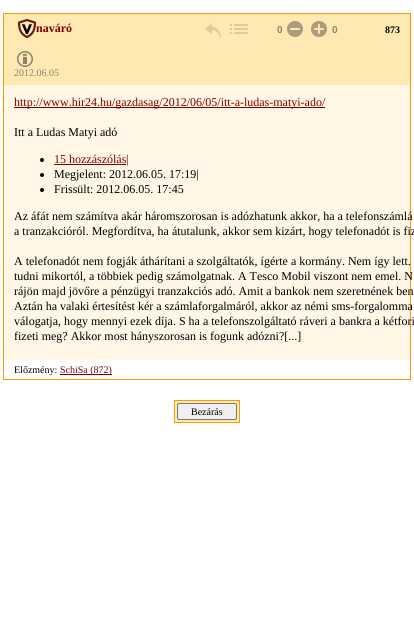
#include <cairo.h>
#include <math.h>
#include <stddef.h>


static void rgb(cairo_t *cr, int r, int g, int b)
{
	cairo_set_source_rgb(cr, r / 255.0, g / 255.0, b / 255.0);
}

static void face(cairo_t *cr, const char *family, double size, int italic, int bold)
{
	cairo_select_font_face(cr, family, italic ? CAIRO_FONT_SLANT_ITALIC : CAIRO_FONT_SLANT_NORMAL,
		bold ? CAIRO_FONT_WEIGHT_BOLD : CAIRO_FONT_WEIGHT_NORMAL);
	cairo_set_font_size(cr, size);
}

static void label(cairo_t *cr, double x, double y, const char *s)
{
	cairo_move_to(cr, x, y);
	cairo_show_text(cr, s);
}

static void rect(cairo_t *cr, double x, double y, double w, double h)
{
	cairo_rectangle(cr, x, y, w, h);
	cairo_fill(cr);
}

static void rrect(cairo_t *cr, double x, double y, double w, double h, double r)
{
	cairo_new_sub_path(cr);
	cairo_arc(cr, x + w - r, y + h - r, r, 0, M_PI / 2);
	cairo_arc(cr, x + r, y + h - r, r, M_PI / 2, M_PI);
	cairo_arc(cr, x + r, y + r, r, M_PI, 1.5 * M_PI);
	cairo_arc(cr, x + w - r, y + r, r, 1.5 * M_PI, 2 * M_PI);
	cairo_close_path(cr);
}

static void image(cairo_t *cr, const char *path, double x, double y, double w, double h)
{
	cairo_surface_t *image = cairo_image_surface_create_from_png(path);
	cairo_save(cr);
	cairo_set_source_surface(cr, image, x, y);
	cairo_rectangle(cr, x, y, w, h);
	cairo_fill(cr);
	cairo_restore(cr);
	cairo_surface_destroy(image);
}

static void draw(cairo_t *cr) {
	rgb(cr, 255, 255, 255);
	cairo_paint(cr);
	rgb(cr, 255, 153, 0);
	rect(cr, 3, 13, 408, 1);
	rect(cr, 410, 13, 1, 367);
	rect(cr, 3, 379, 408, 1);
	rect(cr, 3, 13, 1, 367);
	rgb(cr, 255, 233, 179);
	rect(cr, 4, 14, 406, 71);
	image(cr, "image0.png", 18, 19, 18, 19);
	face(cr, "Liberation Serif", 12, 0, 1);
	rgb(cr, 128, 0, 0);
	label(cr, 36, 32, "naváró");
	image(cr, "image1.png", 17, 51, 16, 16);
	face(cr, "Liberation Serif", 10, 0, 0);
	rgb(cr, 143, 131, 101);
	label(cr, 14, 76, "2012.06.05");
	image(cr, "image2.png", 205, 23, 16, 16);
	image(cr, "image3.png", 230, 24, 18, 10);
	face(cr, "Liberation Sans", 10, 0, 1);
	label(cr, 277, 33, "0");
	image(cr, "image4.png", 287, 21, 16, 16);
	image(cr, "image5.png", 311, 21, 16, 16);
	label(cr, 332, 33, "0");
	face(cr, "Liberation Serif", 10, 0, 1);
	rgb(cr, 0, 0, 0);
	label(cr, 385, 33, "873");
	rgb(cr, 255, 246, 229);
	rect(cr, 4, 85, 406, 275);
	rgb(cr, 128, 0, 0);
	rect(cr, 14, 107, 311, 1);
	face(cr, "Liberation Serif", 12, 0, 0);
	label(cr, 14, 106, "http://www.hir24.hu/gazdasag/2012/06/05/itt-a-ludas-matyi-ado/");
	rgb(cr, 0, 0, 0);
	label(cr, 14, 136, "Itt a Ludas Matyi adó");
	cairo_new_path(cr);
	cairo_arc(cr, 42, 160, 2, 0, 2 * M_PI);
	cairo_fill(cr);
	rgb(cr, 128, 0, 0);
	label(cr, 54, 163, "15 hozzászólás");
	rect(cr, 54, 164, 72, 1);
	rgb(cr, 0, 0, 0);
	label(cr, 126, 163, "|");
	cairo_new_path(cr);
	cairo_arc(cr, 42, 175, 2, 0, 2 * M_PI);
	cairo_fill(cr);
	label(cr, 54, 178, "Megjelent: 2012.06.05. 17:19|");
	cairo_new_path(cr);
	cairo_arc(cr, 42, 190, 2, 0, 2 * M_PI);
	cairo_fill(cr);
	label(cr, 54, 193, "Frissült: 2012.06.05. 17:45");
	label(cr, 14, 220, "Az áfát nem számítva akár háromszorosan is adózhatunk akkor, ha a telefonszámlá");
	label(cr, 14, 235, "a tranzakcióról. Megfordítva, ha átutalunk, akkor sem kizárt, hogy telefonadót is fiz");
	label(cr, 14, 265, "A telefonadót nem fogják áthárítani a szolgáltatók, ígérte a kormány. Nem így lett.");
	label(cr, 14, 280, "tudni mikortól, a többiek pedig számolgatnak. A Tesco Mobil viszont nem emel. N");
	label(cr, 14, 295, "rájön majd jövőre a pénzügyi tranzakciós adó. Amit a bankok nem szeretnének ben");
	label(cr, 14, 310, "Aztán ha valaki értesítést kér a számlaforgalmáról, akkor az némi sms-forgalomma");
	label(cr, 14, 325, "válogatja, hogy mennyi ezek díja. S ha a telefonszolgáltató ráveri a bankra a kétfori");
	label(cr, 14, 340, "fizeti meg? Akkor most hányszorosan is fogunk adózni?[...]");
	face(cr, "Liberation Serif", 10, 0, 0);
	label(cr, 14, 373, "Előzmény:");
	rgb(cr, 128, 0, 0);
	rect(cr, 60, 374, 52, 1);
	label(cr, 60, 373, "SchiSa (872)");
	rgb(cr, 255, 233, 179);
	cairo_rectangle(cr, 174.5, 400.5, 65, 22);
	cairo_fill_preserve(cr);
	rgb(cr, 255, 153, 0);
	cairo_set_line_width(cr, 1);
	cairo_stroke(cr);
	rgb(cr, 239, 239, 239);
	rrect(cr, 177.5, 403.5, 59, 16, 1.5);
	cairo_fill_preserve(cr);
	rgb(cr, 118, 118, 118);
	cairo_stroke(cr);
	rgb(cr, 0, 0, 0);
	label(cr, 191, 415, "Bezárás");
}

int main(void) {
	cairo_surface_t *surface = cairo_image_surface_create(CAIRO_FORMAT_RGB24, 414, 628);
	cairo_t *cr = cairo_create(surface);
	cairo_font_options_t *options = cairo_font_options_create();
	cairo_font_options_set_hint_metrics(options, CAIRO_HINT_METRICS_OFF);
	cairo_font_options_set_hint_style(options, CAIRO_HINT_STYLE_NONE);
	cairo_set_font_options(cr, options);
	cairo_set_miter_limit(cr, 4);
	draw(cr);
	cairo_surface_write_to_png(surface, "render.png");
	cairo_font_options_destroy(options);
	cairo_destroy(cr);
	cairo_surface_destroy(surface);
	return 0;
}
